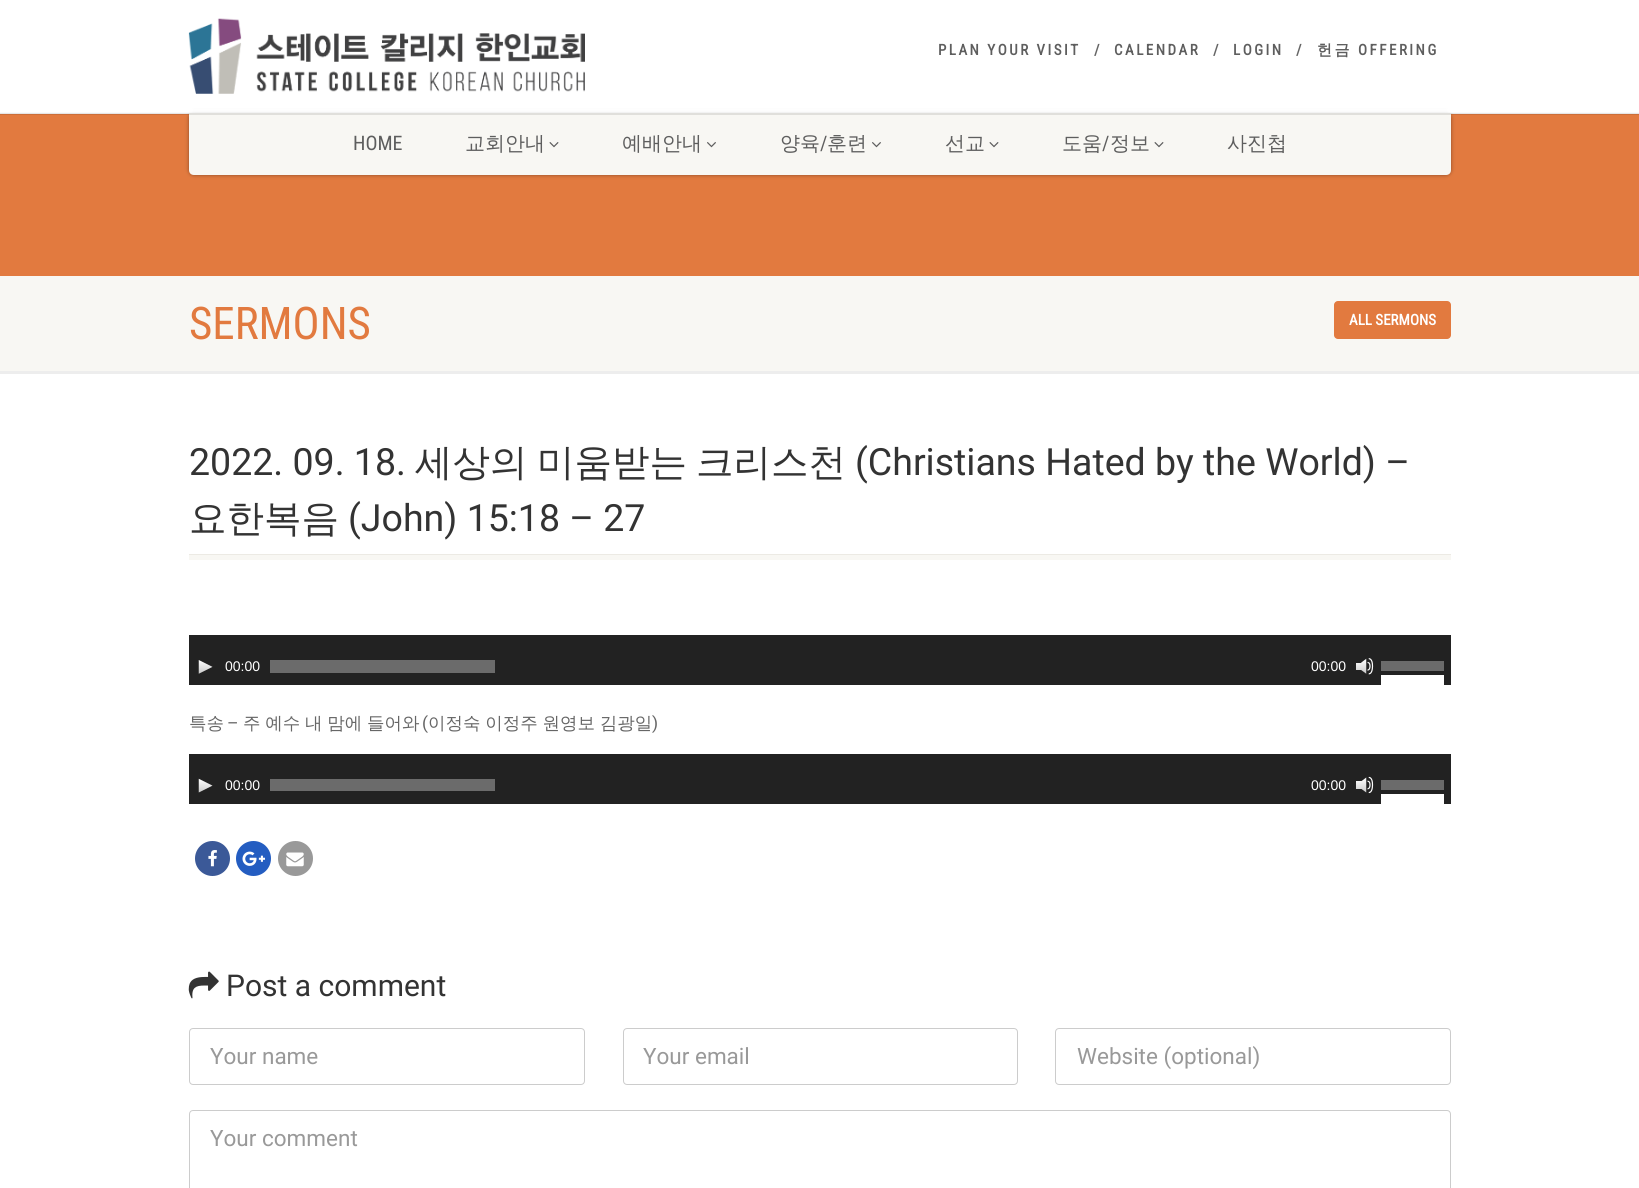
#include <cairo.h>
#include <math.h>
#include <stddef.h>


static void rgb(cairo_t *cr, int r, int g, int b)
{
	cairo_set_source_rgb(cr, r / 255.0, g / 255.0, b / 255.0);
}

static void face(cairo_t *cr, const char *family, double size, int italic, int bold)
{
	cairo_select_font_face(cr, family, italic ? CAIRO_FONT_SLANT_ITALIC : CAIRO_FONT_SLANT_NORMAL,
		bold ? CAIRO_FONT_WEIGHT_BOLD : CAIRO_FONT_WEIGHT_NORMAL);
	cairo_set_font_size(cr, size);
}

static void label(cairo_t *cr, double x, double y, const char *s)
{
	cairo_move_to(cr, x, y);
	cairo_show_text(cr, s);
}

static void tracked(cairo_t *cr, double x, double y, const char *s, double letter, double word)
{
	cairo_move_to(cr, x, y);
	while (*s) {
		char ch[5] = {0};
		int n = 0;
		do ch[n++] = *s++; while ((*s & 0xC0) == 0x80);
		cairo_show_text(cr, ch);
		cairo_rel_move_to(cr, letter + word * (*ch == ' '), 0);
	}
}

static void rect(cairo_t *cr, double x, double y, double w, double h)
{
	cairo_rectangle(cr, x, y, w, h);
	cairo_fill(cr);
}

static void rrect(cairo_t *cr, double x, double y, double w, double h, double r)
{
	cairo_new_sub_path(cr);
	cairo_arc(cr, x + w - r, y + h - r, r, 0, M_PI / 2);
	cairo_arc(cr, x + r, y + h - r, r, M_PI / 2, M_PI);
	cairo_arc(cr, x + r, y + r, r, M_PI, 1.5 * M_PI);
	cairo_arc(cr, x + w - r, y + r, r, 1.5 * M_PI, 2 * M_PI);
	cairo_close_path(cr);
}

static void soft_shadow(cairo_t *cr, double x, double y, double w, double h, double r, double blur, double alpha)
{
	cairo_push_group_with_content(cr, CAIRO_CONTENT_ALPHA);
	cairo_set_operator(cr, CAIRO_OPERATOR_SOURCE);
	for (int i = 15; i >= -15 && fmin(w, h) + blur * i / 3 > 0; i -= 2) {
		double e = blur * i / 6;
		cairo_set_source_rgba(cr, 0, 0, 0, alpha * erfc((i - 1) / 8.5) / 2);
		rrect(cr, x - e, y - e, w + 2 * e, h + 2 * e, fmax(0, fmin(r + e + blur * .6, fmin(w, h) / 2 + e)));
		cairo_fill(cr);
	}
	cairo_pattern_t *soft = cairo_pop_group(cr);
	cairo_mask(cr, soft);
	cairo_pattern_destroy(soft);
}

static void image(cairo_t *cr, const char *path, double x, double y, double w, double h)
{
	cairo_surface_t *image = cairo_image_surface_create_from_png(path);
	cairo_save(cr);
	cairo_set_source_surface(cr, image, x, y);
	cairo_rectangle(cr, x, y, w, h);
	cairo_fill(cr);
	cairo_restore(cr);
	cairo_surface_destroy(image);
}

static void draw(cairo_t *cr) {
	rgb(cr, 255, 255, 255);
	cairo_paint(cr);
	rgb(cr, 226, 122, 63);
	rect(cr, 0, 114, 1639, 162);
	rgb(cr, 0, 0, 0);
	soft_shadow(cr, 189, 113, 1262, 62, 5, 2, 0.4);
	rgb(cr, 248, 247, 243);
	cairo_new_path(cr);
	cairo_move_to(cr, 189, 113);
	cairo_line_to(cr, 1451, 113);
	cairo_line_to(cr, 1451, 170);
	cairo_curve_to(cr, 1451, 173, 1449, 175, 1446, 175);
	cairo_line_to(cr, 194, 175);
	cairo_curve_to(cr, 191, 175, 189, 173, 189, 170);
	cairo_close_path(cr);
	cairo_fill(cr);
	cairo_set_source_rgba(cr, 0, 0, 0, 0.1);
	rect(cr, 0, 112, 1639, 3);
	cairo_set_source_rgba(cr, 1, 1, 1, 0.8);
	rect(cr, 0, 109, 1639, 4);
	image(cr, "image0.png", 188, 18, 397, 76);
	face(cr, "Roboto Condensed", 15, 0, 1);
	rgb(cr, 94, 94, 94);
	tracked(cr, 938, 55, "PLAN YOUR VISIT", 2.5, 0);
	rgb(cr, 102, 102, 102);
	tracked(cr, 1094, 55, "/", 2.5, 0);
	rgb(cr, 94, 94, 94);
	tracked(cr, 1114, 55, "CALENDAR", 2.5, 0);
	rgb(cr, 102, 102, 102);
	tracked(cr, 1213, 55, "/", 2.5, 0);
	rgb(cr, 94, 94, 94);
	tracked(cr, 1233, 55, "LOGIN", 2.5, 0);
	rgb(cr, 102, 102, 102);
	tracked(cr, 1296, 55, "/", 2.5, 0);
	face(cr, "WenQuanYi Zen Hei", 15, 0, 1);
	rgb(cr, 94, 94, 94);
	tracked(cr, 1317, 55, "헌금", 2.5, 0);
	face(cr, "Roboto Condensed", 15, 0, 1);
	tracked(cr, 1358, 55, "OFFERING", 2.5, 0);
	face(cr, "Roboto Condensed", 20, 0, 0);
	label(cr, 353, 150, "HOME");
	face(cr, "WenQuanYi Zen Hei Medium", 20, 0, 0);
	label(cr, 465, 150, "교회안내");
	image(cr, "image1.png", 549, 142, 10, 6);
	label(cr, 622, 150, "예배안내");
	image(cr, "image2.png", 707, 142, 9, 6);
	label(cr, 780, 150, "양육");
	face(cr, "Roboto Condensed", 20, 0, 0);
	label(cr, 820, 150, "/");
	face(cr, "WenQuanYi Zen Hei Medium", 20, 0, 0);
	label(cr, 827, 150, "훈련");
	image(cr, "image2.png", 872, 142, 9, 6);
	label(cr, 945, 150, "선교");
	image(cr, "image1.png", 989, 142, 10, 6);
	label(cr, 1062, 150, "도움");
	face(cr, "Roboto Condensed", 20, 0, 0);
	label(cr, 1102, 150, "/");
	face(cr, "WenQuanYi Zen Hei Medium", 20, 0, 0);
	label(cr, 1110, 150, "정보");
	image(cr, "image1.png", 1154, 142, 10, 6);
	label(cr, 1227, 150, "사진첩");
	rgb(cr, 237, 237, 237);
	rect(cr, 0, 371, 1639, 3);
	rgb(cr, 248, 247, 243);
	rect(cr, 0, 276, 1639, 95);
	face(cr, "Roboto Condensed", 45, 0, 0);
	rgb(cr, 226, 122, 63);
	label(cr, 189, 339, "SERMONS");
	rrect(cr, 1334, 301, 117, 38, 4);
	cairo_fill(cr);
	face(cr, "Roboto Condensed", 15, 0, 1);
	rgb(cr, 255, 255, 255);
	label(cr, 1349, 325, "ALL SERMONS");
	rgb(cr, 236, 234, 228);
	rect(cr, 189, 554, 1262, 1);
	face(cr, "Roboto", 37.5, 0, 0);
	rgb(cr, 51, 51, 51);
	label(cr, 189, 475, "2022. 09. 18.");
	face(cr, "WenQuanYi Zen Hei Medium", 37.5, 0, 0);
	label(cr, 415, 475, "세상의");
	label(cr, 537, 475, "미움받는");
	label(cr, 696, 475, "크리스천");
	face(cr, "Roboto", 37.5, 0, 0);
	label(cr, 855, 475, "(Christians Hated by the World) –");
	face(cr, "WenQuanYi Zen Hei Medium", 37.5, 0, 0);
	label(cr, 189, 531, "요한복음");
	face(cr, "Roboto", 37.5, 0, 0);
	label(cr, 348, 531, "(John) 15:18 – 27");
	rgb(cr, 248, 247, 243);
	rect(cr, 189, 555, 1262, 5);
	rgb(cr, 34, 34, 34);
	rect(cr, 189, 635, 1262, 50);
	image(cr, "image3.png", 198, 660, 15, 14);
	face(cr, "Liberation Sans", 14, 0, 0);
	rgb(cr, 255, 255, 255);
	label(cr, 225, 671, "00:00");
	rgb(cr, 107, 107, 107);
	rect(cr, 270, 660, 225, 13);
	rgb(cr, 255, 255, 255);
	label(cr, 1311, 671, "00:00");
	image(cr, "image4.png", 1356, 658, 18, 17);
	rgb(cr, 107, 107, 107);
	rect(cr, 1381, 661, 63, 10);
	rgb(cr, 255, 255, 255);
	rect(cr, 1381, 675, 63, 10);
	face(cr, "WenQuanYi Zen Hei Medium", 17.5, 0, 0);
	rgb(cr, 102, 102, 102);
	label(cr, 189, 729, "특송");
	face(cr, "Roboto", 17.5, 0, 0);
	label(cr, 227, 729, "–");
	face(cr, "WenQuanYi Zen Hei Medium", 17.5, 0, 0);
	tracked(cr, 243, 729, "주 예수 내 맘에 들어와", 0, -0.5);
	face(cr, "Roboto", 17.5, 0, 0);
	label(cr, 422, 729, "(");
	face(cr, "WenQuanYi Zen Hei Medium", 17.5, 0, 0);
	tracked(cr, 428, 729, "이정숙 이정주 원영보 김광일", 0, -0.5);
	face(cr, "Roboto", 17.5, 0, 0);
	label(cr, 652, 729, ")");
	rgb(cr, 34, 34, 34);
	rect(cr, 189, 754, 1262, 50);
	image(cr, "image5.png", 198, 778, 15, 15);
	face(cr, "Liberation Sans", 14, 0, 0);
	rgb(cr, 255, 255, 255);
	label(cr, 225, 790, "00:00");
	rgb(cr, 107, 107, 107);
	rect(cr, 270, 779, 225, 12);
	rgb(cr, 255, 255, 255);
	label(cr, 1311, 790, "00:00");
	image(cr, "image6.png", 1356, 776, 18, 18);
	rgb(cr, 107, 107, 107);
	rect(cr, 1381, 780, 63, 10);
	rgb(cr, 255, 255, 255);
	rect(cr, 1381, 794, 63, 10);
	rgb(cr, 59, 89, 152);
	cairo_arc(cr, 212.5, 858.5, 17.5, 0, 2 * M_PI);
	cairo_fill(cr);
	image(cr, "image7.png", 208, 850, 9, 17);
	rgb(cr, 36, 93, 193);
	cairo_arc(cr, 253.5, 858.5, 17.5, 0, 2 * M_PI);
	cairo_fill(cr);
	image(cr, "image8.png", 242, 851, 23, 15);
	rgb(cr, 153, 153, 153);
	cairo_arc(cr, 295.5, 858.5, 17.5, 0, 2 * M_PI);
	cairo_fill(cr);
	image(cr, "image9.png", 286, 852, 18, 15);
	image(cr, "image10.png", 188, 971, 31, 28);
	face(cr, "Roboto", 30, 0, 0);
	rgb(cr, 51, 51, 51);
	label(cr, 226, 996, "Post a comment");
	rrect(cr, 189.5, 1028.5, 395, 56, 3.5);
	rgb(cr, 204, 204, 204);
	cairo_set_line_width(cr, 1);
	cairo_stroke(cr);
	face(cr, "Roboto", 22.5, 0, 0);
	rgb(cr, 153, 153, 153);
	label(cr, 210, 1064, "Your name");
	rrect(cr, 623.5, 1028.5, 394, 56, 3.5);
	rgb(cr, 204, 204, 204);
	cairo_stroke(cr);
	rgb(cr, 153, 153, 153);
	label(cr, 643, 1064, "Your email");
	rrect(cr, 1055.5, 1028.5, 395, 56, 3.5);
	rgb(cr, 204, 204, 204);
	cairo_stroke(cr);
	rgb(cr, 153, 153, 153);
	label(cr, 1077, 1064, "Website (optional)");
	rrect(cr, 189.5, 1110.5, 1261, 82, 3.5);
	rgb(cr, 204, 204, 204);
	cairo_stroke(cr);
	rgb(cr, 153, 153, 153);
	label(cr, 210, 1146, "Your comment");
}

int main(void) {
	cairo_surface_t *surface = cairo_image_surface_create(CAIRO_FORMAT_RGB24, 1639, 1188);
	cairo_t *cr = cairo_create(surface);
	cairo_font_options_t *options = cairo_font_options_create();
	cairo_font_options_set_hint_metrics(options, CAIRO_HINT_METRICS_OFF);
	cairo_font_options_set_hint_style(options, CAIRO_HINT_STYLE_NONE);
	cairo_set_font_options(cr, options);
	cairo_set_miter_limit(cr, 4);
	draw(cr);
	cairo_surface_write_to_png(surface, "render.png");
	cairo_font_options_destroy(options);
	cairo_destroy(cr);
	cairo_surface_destroy(surface);
	return 0;
}
